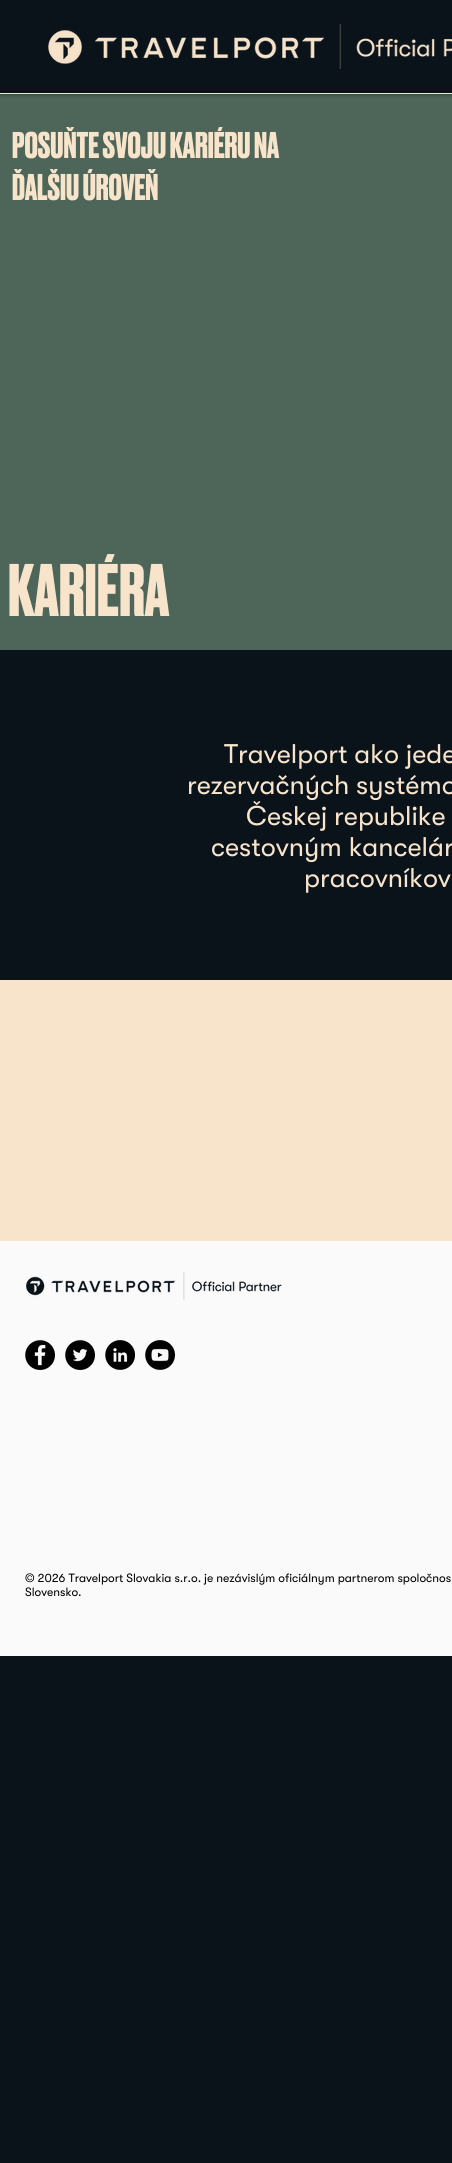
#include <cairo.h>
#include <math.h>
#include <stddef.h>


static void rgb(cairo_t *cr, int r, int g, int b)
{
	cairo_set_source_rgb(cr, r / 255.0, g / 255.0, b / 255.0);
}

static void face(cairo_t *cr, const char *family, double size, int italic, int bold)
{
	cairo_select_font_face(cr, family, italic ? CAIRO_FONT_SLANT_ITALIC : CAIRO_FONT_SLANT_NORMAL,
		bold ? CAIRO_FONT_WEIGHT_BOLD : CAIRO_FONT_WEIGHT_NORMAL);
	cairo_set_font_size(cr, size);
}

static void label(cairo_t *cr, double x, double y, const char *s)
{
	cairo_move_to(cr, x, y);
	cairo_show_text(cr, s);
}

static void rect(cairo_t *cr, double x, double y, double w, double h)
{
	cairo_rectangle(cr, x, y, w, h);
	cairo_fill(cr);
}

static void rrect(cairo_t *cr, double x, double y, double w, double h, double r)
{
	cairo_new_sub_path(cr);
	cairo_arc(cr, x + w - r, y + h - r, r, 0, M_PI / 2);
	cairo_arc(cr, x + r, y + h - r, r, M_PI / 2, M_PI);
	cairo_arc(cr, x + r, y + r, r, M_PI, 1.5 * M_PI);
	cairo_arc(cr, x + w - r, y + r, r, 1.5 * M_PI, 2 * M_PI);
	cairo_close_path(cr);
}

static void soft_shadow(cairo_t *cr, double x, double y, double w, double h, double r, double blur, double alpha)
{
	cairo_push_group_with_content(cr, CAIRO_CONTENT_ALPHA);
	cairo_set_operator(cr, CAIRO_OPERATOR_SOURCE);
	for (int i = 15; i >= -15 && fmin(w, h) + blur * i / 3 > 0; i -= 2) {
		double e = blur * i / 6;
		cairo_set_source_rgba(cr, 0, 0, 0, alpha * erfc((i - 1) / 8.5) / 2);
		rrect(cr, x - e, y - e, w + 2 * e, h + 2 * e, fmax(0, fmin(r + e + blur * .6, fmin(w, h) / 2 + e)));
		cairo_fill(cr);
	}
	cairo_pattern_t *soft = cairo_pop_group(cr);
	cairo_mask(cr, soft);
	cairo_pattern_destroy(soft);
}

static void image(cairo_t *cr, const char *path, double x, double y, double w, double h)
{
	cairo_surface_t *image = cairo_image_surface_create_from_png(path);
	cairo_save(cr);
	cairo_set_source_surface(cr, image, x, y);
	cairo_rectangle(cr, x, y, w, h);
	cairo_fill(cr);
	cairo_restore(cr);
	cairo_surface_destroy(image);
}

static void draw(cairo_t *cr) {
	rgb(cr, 10, 18, 26);
	cairo_paint(cr);
	rgb(cr, 78, 102, 89);
	rect(cr, 0, 94, 452, 556);
	cairo_save(cr);
	cairo_rectangle(cr, 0, 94, 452, 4);
	cairo_clip(cr);
	rgb(cr, 0, 0, 0);
	soft_shadow(cr, 0, 0, 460, 94, 0, 2.5, 0.5);
	cairo_restore(cr);
	rgb(cr, 247, 228, 203);
	rect(cr, 0, 93, 452, 1);
	image(cr, "image0.png", 48, 24, 404, 45);
	face(cr, "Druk", 35, 0, 1);
	label(cr, 12, 158, "POSUŇTE SVOJU KARIÉRU NA");
	label(cr, 12, 200, "ĎALŠIU ÚROVEŇ");
	face(cr, "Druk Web", 70, 0, 1);
	label(cr, 8, 616, "KARIÉRA");
	face(cr, "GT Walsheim", 27, 0, 0);
	label(cr, 224, 763, "Travelport ako jede");
	label(cr, 187, 794, "rezervačných systémo");
	label(cr, 246, 825, "Českej republike");
	label(cr, 211, 856, "cestovným kancelár");
	label(cr, 304, 887, "pracovníkov");
	rect(cr, 0, 980, 452, 261);
	rgb(cr, 250, 250, 250);
	rect(cr, 0, 1241, 452, 415);
	image(cr, "image1.png", 26, 1272, 256, 28);
	image(cr, "image2.png", 25, 1340, 30, 30);
	image(cr, "image3.png", 65, 1340, 30, 30);
	image(cr, "image4.png", 105, 1340, 30, 30);
	image(cr, "image5.png", 145, 1340, 30, 30);
	face(cr, "GT Walsheim", 12, 0, 0);
	rgb(cr, 0, 0, 0);
	label(cr, 25, 1582, "© 2026 Travelport Slovakia s.r.o. je nezávislým oficiálnym partnerom spoločnos");
	label(cr, 25, 1596, "Slovensko.");
}

int main(void) {
	cairo_surface_t *surface = cairo_image_surface_create(CAIRO_FORMAT_RGB24, 452, 2163);
	cairo_t *cr = cairo_create(surface);
	cairo_font_options_t *options = cairo_font_options_create();
	cairo_font_options_set_hint_metrics(options, CAIRO_HINT_METRICS_OFF);
	cairo_font_options_set_hint_style(options, CAIRO_HINT_STYLE_NONE);
	cairo_set_font_options(cr, options);
	cairo_set_miter_limit(cr, 4);
	draw(cr);
	cairo_surface_write_to_png(surface, "render.png");
	cairo_font_options_destroy(options);
	cairo_destroy(cr);
	cairo_surface_destroy(surface);
	return 0;
}
